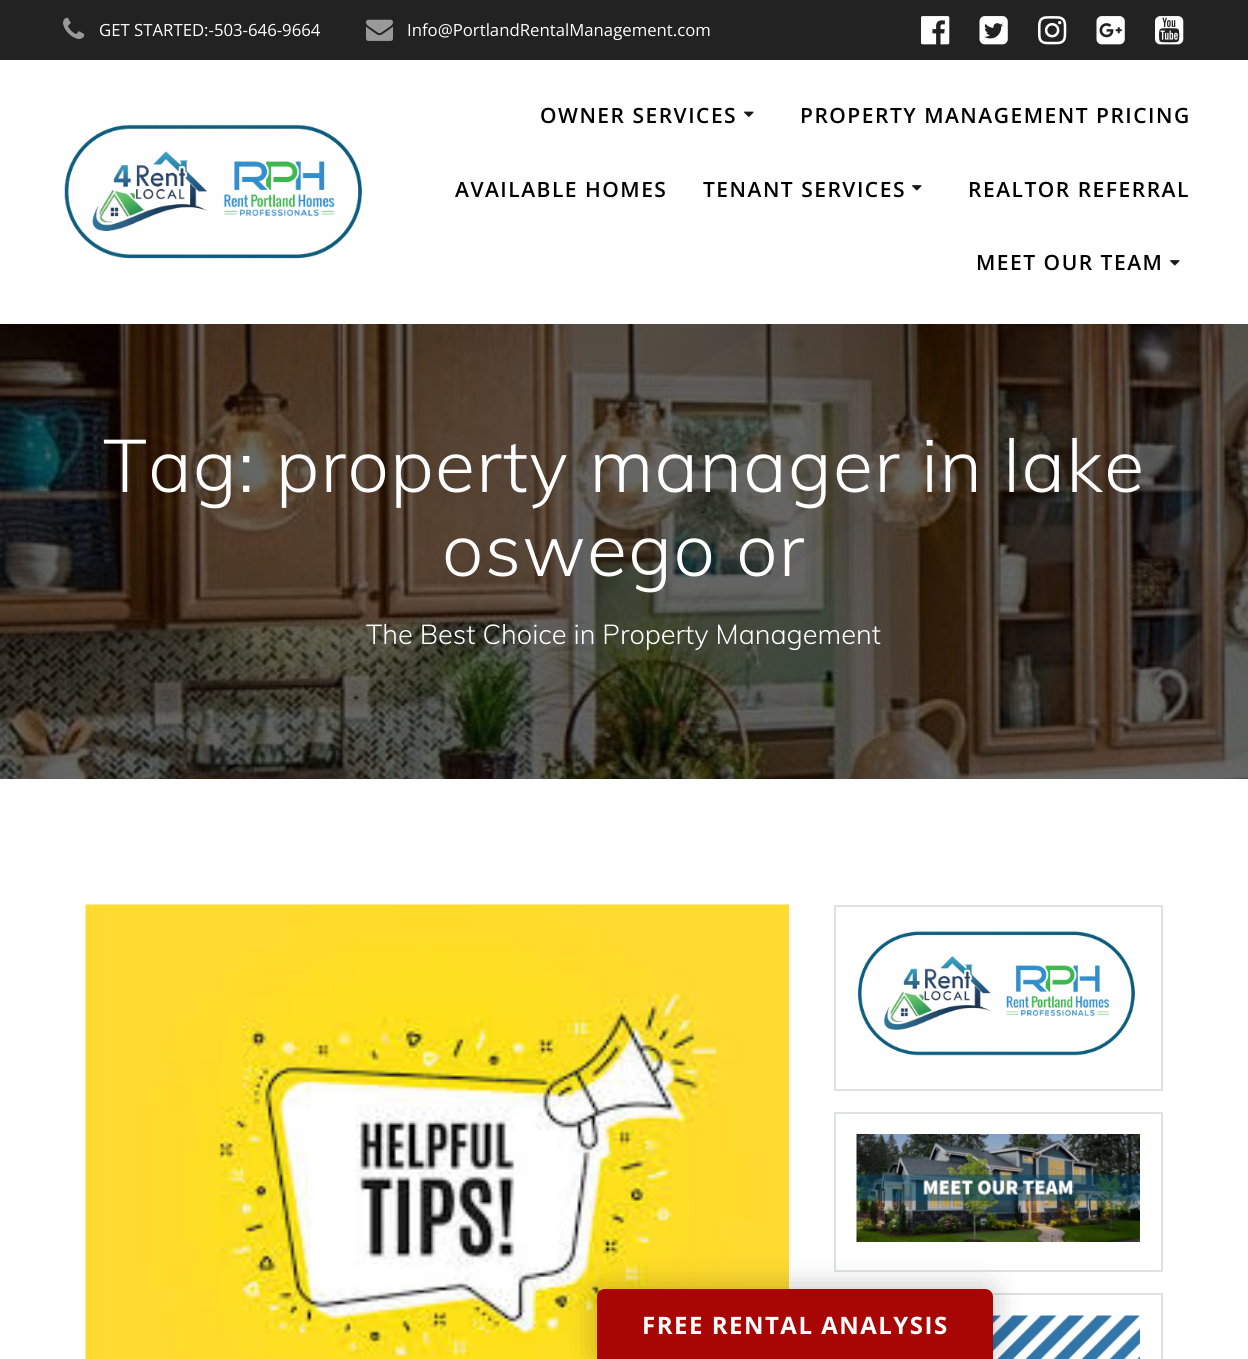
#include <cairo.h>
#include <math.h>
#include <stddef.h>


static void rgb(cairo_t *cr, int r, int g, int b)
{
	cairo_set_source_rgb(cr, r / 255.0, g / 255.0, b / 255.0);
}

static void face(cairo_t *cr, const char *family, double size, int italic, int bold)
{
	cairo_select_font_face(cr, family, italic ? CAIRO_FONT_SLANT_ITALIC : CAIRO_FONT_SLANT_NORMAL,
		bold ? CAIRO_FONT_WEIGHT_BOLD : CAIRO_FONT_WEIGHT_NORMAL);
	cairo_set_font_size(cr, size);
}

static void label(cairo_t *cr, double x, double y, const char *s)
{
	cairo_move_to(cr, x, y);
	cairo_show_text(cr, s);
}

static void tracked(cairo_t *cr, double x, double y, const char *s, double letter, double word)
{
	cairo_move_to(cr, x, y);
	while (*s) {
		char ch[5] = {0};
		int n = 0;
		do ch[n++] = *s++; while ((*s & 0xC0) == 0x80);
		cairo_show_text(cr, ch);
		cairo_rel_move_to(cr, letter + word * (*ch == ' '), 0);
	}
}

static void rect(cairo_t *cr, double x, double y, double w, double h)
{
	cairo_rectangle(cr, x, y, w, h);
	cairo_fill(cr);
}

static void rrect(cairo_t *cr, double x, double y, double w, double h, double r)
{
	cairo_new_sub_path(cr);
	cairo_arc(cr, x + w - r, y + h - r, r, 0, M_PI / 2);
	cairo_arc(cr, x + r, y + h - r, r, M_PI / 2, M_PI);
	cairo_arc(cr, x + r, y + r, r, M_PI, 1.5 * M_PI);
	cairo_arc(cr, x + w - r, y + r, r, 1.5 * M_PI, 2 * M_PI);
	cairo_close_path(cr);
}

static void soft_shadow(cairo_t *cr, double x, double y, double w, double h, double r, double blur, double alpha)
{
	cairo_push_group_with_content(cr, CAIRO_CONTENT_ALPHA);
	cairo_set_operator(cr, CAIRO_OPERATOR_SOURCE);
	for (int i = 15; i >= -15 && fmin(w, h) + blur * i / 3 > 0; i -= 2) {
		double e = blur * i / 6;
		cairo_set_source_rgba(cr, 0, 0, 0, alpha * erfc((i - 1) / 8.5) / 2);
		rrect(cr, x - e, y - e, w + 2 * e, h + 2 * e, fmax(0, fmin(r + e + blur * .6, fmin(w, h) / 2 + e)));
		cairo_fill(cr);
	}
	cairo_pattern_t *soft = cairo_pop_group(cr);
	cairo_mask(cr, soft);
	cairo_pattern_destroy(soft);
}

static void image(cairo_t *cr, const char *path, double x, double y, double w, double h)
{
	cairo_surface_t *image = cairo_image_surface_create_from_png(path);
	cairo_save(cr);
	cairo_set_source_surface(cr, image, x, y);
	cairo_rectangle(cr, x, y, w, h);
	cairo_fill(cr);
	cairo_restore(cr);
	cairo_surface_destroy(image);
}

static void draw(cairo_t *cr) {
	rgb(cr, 255, 255, 255);
	cairo_paint(cr);
	rgb(cr, 34, 34, 34);
	rect(cr, 0, 0, 1248, 60);
	image(cr, "image0.png", 63, 17, 22, 22);
	face(cr, "Open Sans", 16.75, 0, 0);
	rgb(cr, 255, 255, 255);
	label(cr, 99, 36, "GET STARTED:-503-646-9664");
	image(cr, "image1.png", 366, 19, 27, 22);
	label(cr, 407, 36, "Info@PortlandRentalManagement.com");
	image(cr, "image2.png", 921, 16, 29, 29);
	image(cr, "image3.png", 979, 16, 29, 29);
	image(cr, "image4.png", 1038, 16, 29, 29);
	image(cr, "image5.png", 1096, 16, 29, 29);
	image(cr, "image6.png", 1155, 16, 29, 29);
	image(cr, "image7.png", 64, 124, 298, 135);
	face(cr, "Open Sans SemiBold", 21, 0, 0);
	rgb(cr, 0, 0, 0);
	tracked(cr, 540, 123, "OWNER SERVICES", 1.5, 0);
	image(cr, "image8.png", 744, 111, 10, 6);
	tracked(cr, 800, 123, "PROPERTY MANAGEMENT PRICING", 1.5, 0);
	tracked(cr, 455, 197, "AVAILABLE HOMES", 1.5, 0);
	tracked(cr, 703, 197, "TENANT SERVICES", 1.5, 0);
	image(cr, "image9.png", 912, 185, 10, 6);
	tracked(cr, 968, 197, "REALTOR REFERRAL", 1.5, 0);
	tracked(cr, 976, 270, "MEET OUR TEAM", 1.5, 0);
	image(cr, "image9.png", 1170, 260, 10, 6);
	image(cr, "image10.png", 0, 324, 1248, 455);
	image(cr, "image11.png", 393, 324, 473, 455);
	face(cr, "Muli Light", 73.5, 0, 0);
	rgb(cr, 255, 255, 255);
	tracked(cr, 103, 492, "Tag: property manager in lake", 1.35, 0);
	tracked(cr, 442, 576, "oswego or", 1.35, 0);
	face(cr, "Muli Light", 27.25, 0, 0);
	label(cr, 366, 644, "The Best Choice in Property Management");
	image(cr, "image12.png", 85, 904, 704, 455);
	cairo_rectangle(cr, 835, 906, 327, 184);
	rgb(cr, 224, 225, 225);
	cairo_stroke(cr);
	image(cr, "image13.png", 858, 931, 277, 125);
	cairo_rectangle(cr, 835, 1113, 327, 158);
	cairo_stroke(cr);
	image(cr, "image14.png", 856, 1134, 284, 108);
	cairo_rectangle(cr, 835, 1294, 327, 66);
	cairo_stroke(cr);
	image(cr, "image15.png", 993, 1315, 147, 44);
	rgb(cr, 0, 0, 0);
	soft_shadow(cr, 597, 1289, 396, 70, 8, 15, 0.25);
	rgb(cr, 168, 5, 5);
	cairo_new_path(cr);
	cairo_move_to(cr, 605, 1289);
	cairo_line_to(cr, 985, 1289);
	cairo_curve_to(cr, 989.5, 1289, 993, 1292.5, 993, 1297);
	cairo_line_to(cr, 993, 1359);
	cairo_line_to(cr, 597, 1359);
	cairo_line_to(cr, 597, 1297);
	cairo_curve_to(cr, 597, 1292.5, 600.5, 1289, 605, 1289);
	cairo_close_path(cr);
	cairo_fill(cr);
	face(cr, "Open Sans", 24, 0, 1);
	rgb(cr, 255, 255, 255);
	tracked(cr, 642, 1334, "FREE RENTAL ANALYSIS", 1.5, 0);
}

int main(void) {
	cairo_surface_t *surface = cairo_image_surface_create(CAIRO_FORMAT_RGB24, 1248, 1359);
	cairo_t *cr = cairo_create(surface);
	cairo_font_options_t *options = cairo_font_options_create();
	cairo_font_options_set_hint_metrics(options, CAIRO_HINT_METRICS_OFF);
	cairo_font_options_set_hint_style(options, CAIRO_HINT_STYLE_NONE);
	cairo_set_font_options(cr, options);
	cairo_set_miter_limit(cr, 4);
	draw(cr);
	cairo_surface_write_to_png(surface, "render.png");
	cairo_font_options_destroy(options);
	cairo_destroy(cr);
	cairo_surface_destroy(surface);
	return 0;
}
